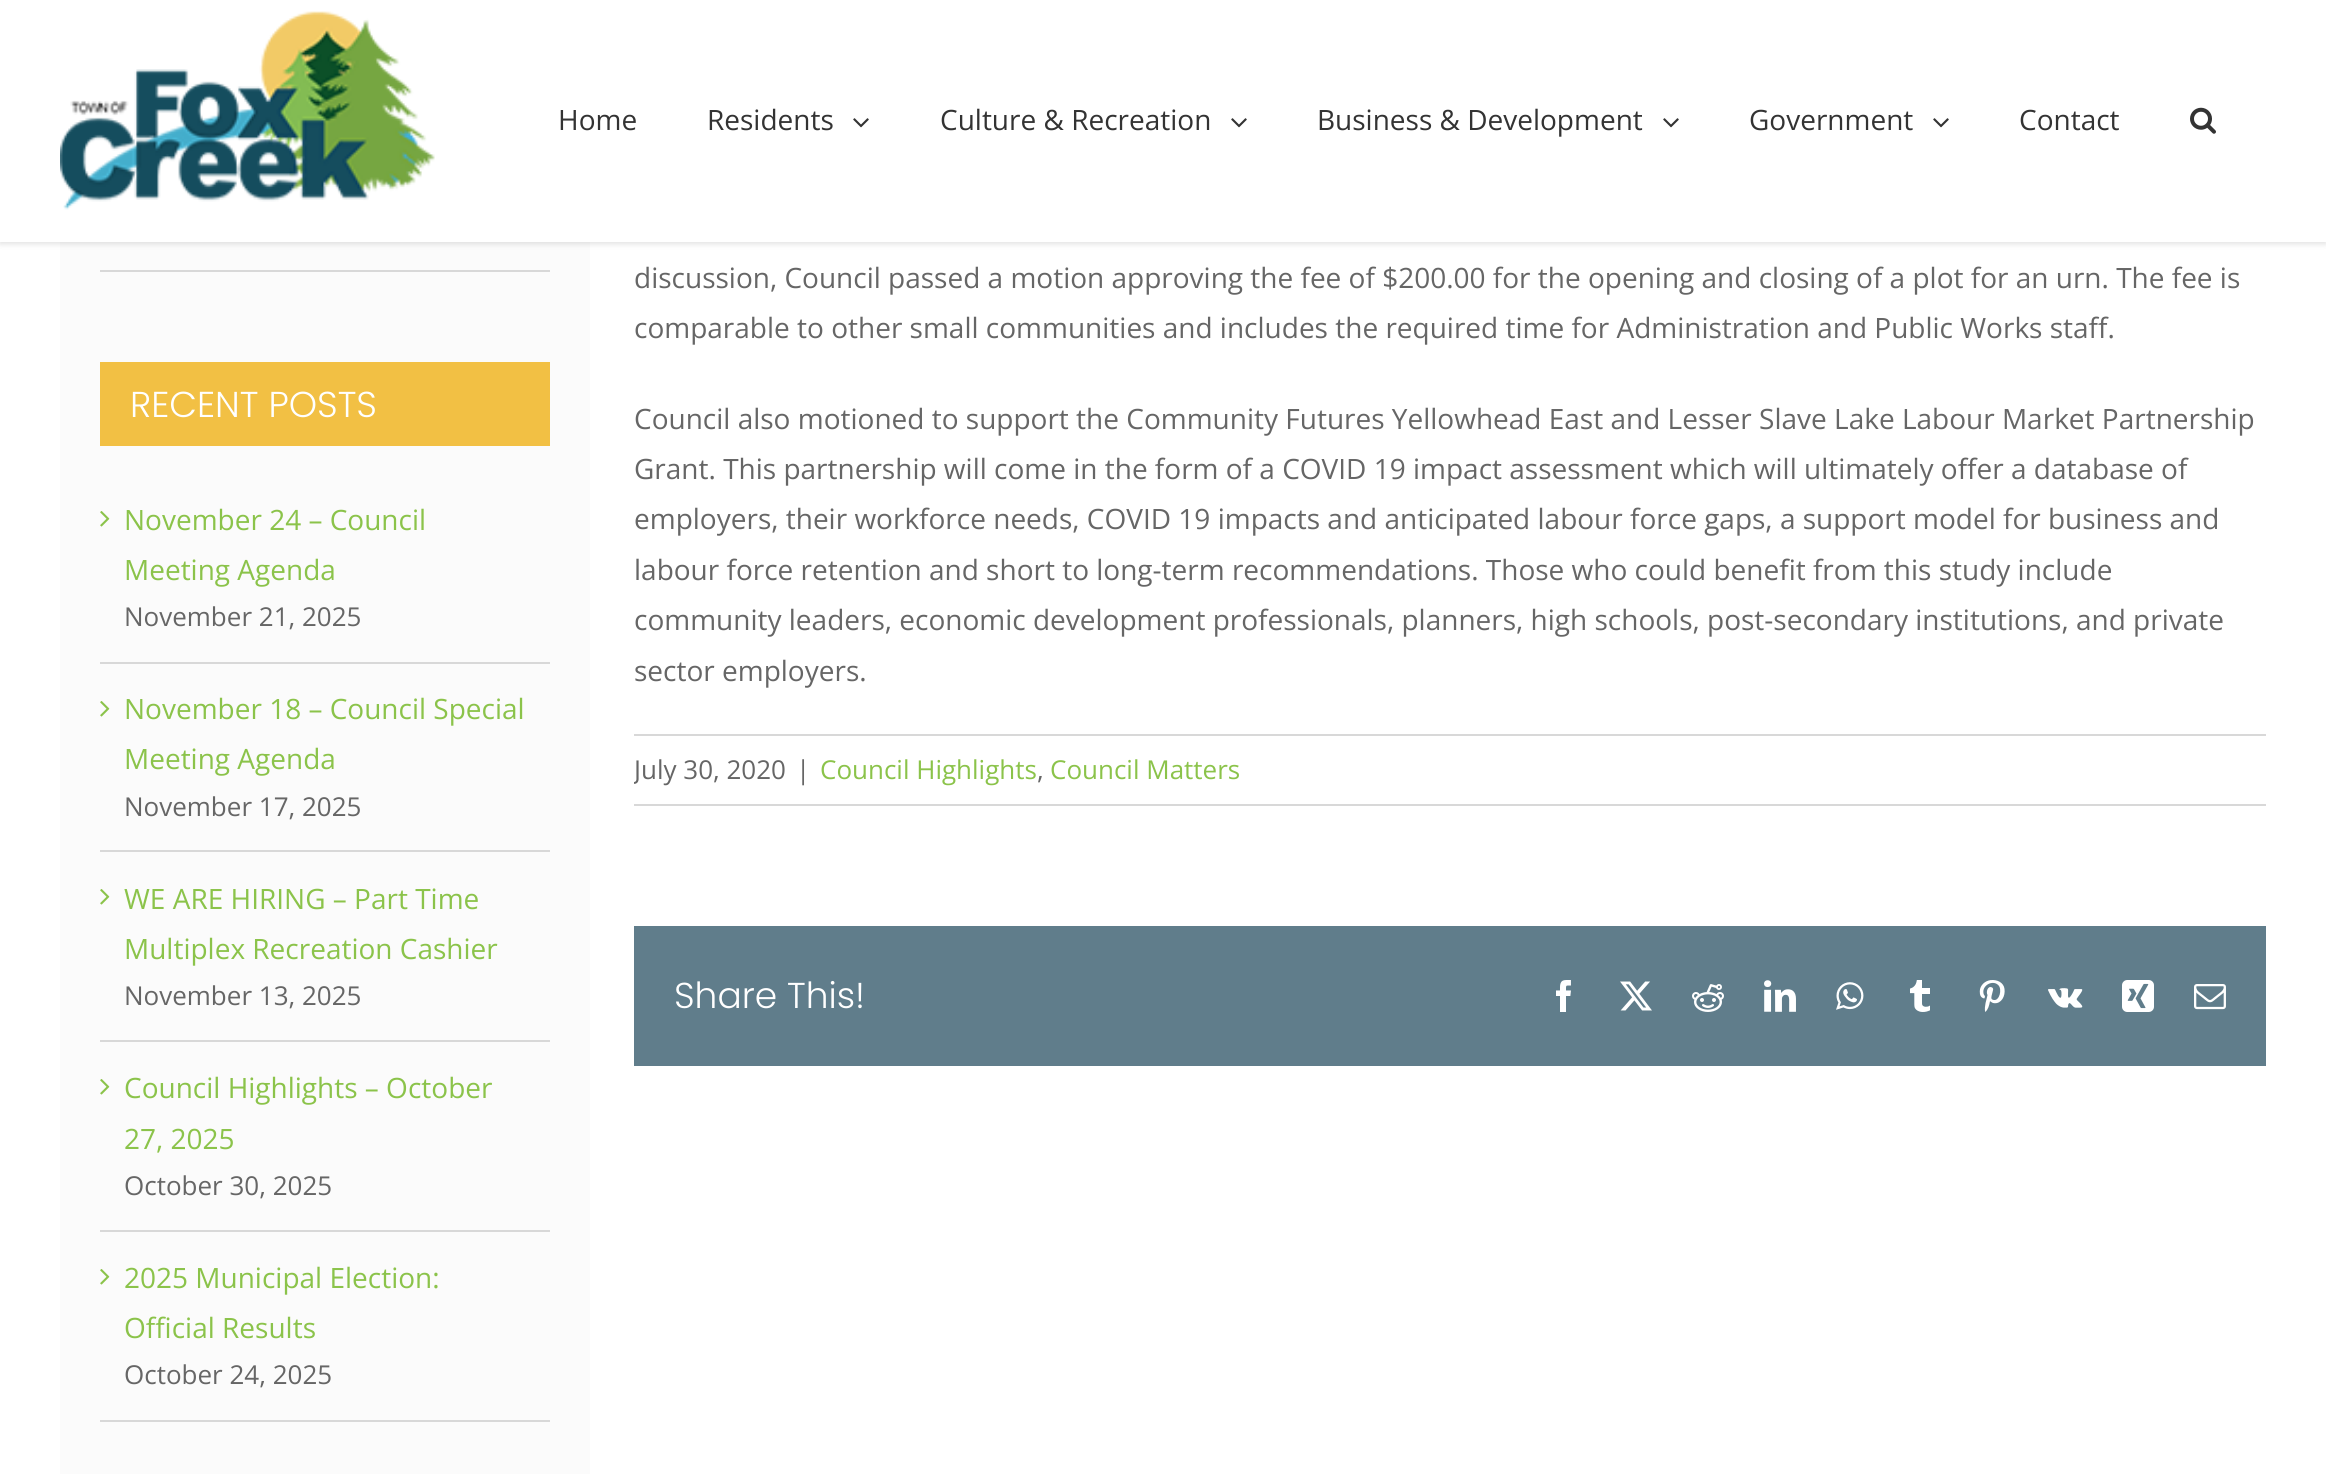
#include <cairo.h>
#include <math.h>
#include <stddef.h>


static void rgb(cairo_t *cr, int r, int g, int b)
{
	cairo_set_source_rgb(cr, r / 255.0, g / 255.0, b / 255.0);
}

static void face(cairo_t *cr, const char *family, double size, int italic, int bold)
{
	cairo_select_font_face(cr, family, italic ? CAIRO_FONT_SLANT_ITALIC : CAIRO_FONT_SLANT_NORMAL,
		bold ? CAIRO_FONT_WEIGHT_BOLD : CAIRO_FONT_WEIGHT_NORMAL);
	cairo_set_font_size(cr, size);
}

static void label(cairo_t *cr, double x, double y, const char *s)
{
	cairo_move_to(cr, x, y);
	cairo_show_text(cr, s);
}

static void rect(cairo_t *cr, double x, double y, double w, double h)
{
	cairo_rectangle(cr, x, y, w, h);
	cairo_fill(cr);
}

static void rrect(cairo_t *cr, double x, double y, double w, double h, double r)
{
	cairo_new_sub_path(cr);
	cairo_arc(cr, x + w - r, y + h - r, r, 0, M_PI / 2);
	cairo_arc(cr, x + r, y + h - r, r, M_PI / 2, M_PI);
	cairo_arc(cr, x + r, y + r, r, M_PI, 1.5 * M_PI);
	cairo_arc(cr, x + w - r, y + r, r, 1.5 * M_PI, 2 * M_PI);
	cairo_close_path(cr);
}

static void soft_shadow(cairo_t *cr, double x, double y, double w, double h, double r, double blur, double alpha)
{
	cairo_push_group_with_content(cr, CAIRO_CONTENT_ALPHA);
	cairo_set_operator(cr, CAIRO_OPERATOR_SOURCE);
	for (int i = 15; i >= -15 && fmin(w, h) + blur * i / 3 > 0; i -= 2) {
		double e = blur * i / 6;
		cairo_set_source_rgba(cr, 0, 0, 0, alpha * erfc((i - 1) / 8.5) / 2);
		rrect(cr, x - e, y - e, w + 2 * e, h + 2 * e, fmax(0, fmin(r + e + blur * .6, fmin(w, h) / 2 + e)));
		cairo_fill(cr);
	}
	cairo_pattern_t *soft = cairo_pop_group(cr);
	cairo_mask(cr, soft);
	cairo_pattern_destroy(soft);
}

static void image(cairo_t *cr, const char *path, double x, double y, double w, double h)
{
	cairo_surface_t *image = cairo_image_surface_create_from_png(path);
	cairo_save(cr);
	cairo_set_source_surface(cr, image, x, y);
	cairo_rectangle(cr, x, y, w, h);
	cairo_fill(cr);
	cairo_restore(cr);
	cairo_surface_destroy(image);
}

static void draw(cairo_t *cr) {
	rgb(cr, 255, 255, 255);
	cairo_paint(cr);
	rgb(cr, 251, 251, 251);
	rect(cr, 60, 242, 530, 1232);
	rgb(cr, 0, 0, 0);
	soft_shadow(cr, 0, 2, 2326, 242, 0, 3, 0.12);
	rgb(cr, 255, 255, 255);
	rect(cr, 0, 0, 2326, 242);
	image(cr, "image0.png", 60, 11, 375, 199);
	face(cr, "Open Sans", 28, 0, 0);
	rgb(cr, 51, 51, 51);
	label(cr, 558, 130, "Home");
	label(cr, 707, 130, "Residents");
	image(cr, "image1.png", 853, 118, 16, 10);
	label(cr, 940, 130, "Culture & Recreation");
	image(cr, "image1.png", 1231, 118, 16, 10);
	label(cr, 1317, 130, "Business & Development");
	image(cr, "image1.png", 1663, 118, 16, 10);
	label(cr, 1749, 130, "Government");
	image(cr, "image1.png", 1933, 118, 16, 10);
	label(cr, 2019, 130, "Contact");
	image(cr, "image2.png", 2190, 107, 26, 27);
	rgb(cr, 216, 216, 216);
	rect(cr, 100, 270, 450, 2);
	rgb(cr, 242, 192, 68);
	rect(cr, 100, 362, 450, 84);
	face(cr, "Poppins Light", 36, 0, 0);
	rgb(cr, 255, 255, 255);
	label(cr, 130, 417, "RECENT POSTS");
	rgb(cr, 216, 216, 216);
	rect(cr, 100, 662, 450, 2);
	image(cr, "image3.png", 100, 511, 10, 16);
	face(cr, "Open Sans", 28, 0, 0);
	rgb(cr, 139, 195, 74);
	label(cr, 124, 530, "November 24 – Council");
	label(cr, 124, 580, "Meeting Agenda");
	face(cr, "Open Sans", 26, 0, 0);
	rgb(cr, 102, 102, 102);
	label(cr, 124, 626, "November 21, 2025");
	rgb(cr, 216, 216, 216);
	rect(cr, 100, 850, 450, 2);
	image(cr, "image3.png", 100, 701, 10, 16);
	face(cr, "Open Sans", 28, 0, 0);
	rgb(cr, 139, 195, 74);
	label(cr, 124, 719, "November 18 – Council Special");
	label(cr, 124, 769, "Meeting Agenda");
	face(cr, "Open Sans", 26, 0, 0);
	rgb(cr, 102, 102, 102);
	label(cr, 124, 816, "November 17, 2025");
	rgb(cr, 216, 216, 216);
	rect(cr, 100, 1040, 450, 2);
	image(cr, "image3.png", 100, 889, 10, 16);
	face(cr, "Open Sans", 28, 0, 0);
	rgb(cr, 139, 195, 74);
	label(cr, 124, 909, "WE ARE HIRING – Part Time");
	label(cr, 124, 959, "Multiplex Recreation Cashier");
	face(cr, "Open Sans", 26, 0, 0);
	rgb(cr, 102, 102, 102);
	label(cr, 124, 1005, "November 13, 2025");
	rgb(cr, 216, 216, 216);
	rect(cr, 100, 1230, 450, 2);
	image(cr, "image3.png", 100, 1079, 10, 16);
	face(cr, "Open Sans", 28, 0, 0);
	rgb(cr, 139, 195, 74);
	label(cr, 124, 1098, "Council Highlights – October");
	label(cr, 124, 1149, "27, 2025");
	face(cr, "Open Sans", 26, 0, 0);
	rgb(cr, 102, 102, 102);
	label(cr, 124, 1195, "October 30, 2025");
	rgb(cr, 216, 216, 216);
	rect(cr, 100, 1420, 450, 2);
	image(cr, "image3.png", 100, 1269, 10, 16);
	face(cr, "Open Sans", 28, 0, 0);
	rgb(cr, 139, 195, 74);
	label(cr, 124, 1288, "2025 Municipal Election:");
	label(cr, 124, 1338, "Official Results");
	face(cr, "Open Sans", 26, 0, 0);
	rgb(cr, 102, 102, 102);
	label(cr, 124, 1384, "October 24, 2025");
	face(cr, "Open Sans", 28, 0, 0);
	label(cr, 634, 288, "discussion, Council passed a motion approving the fee of $200.00 for the opening and closing of a plot for an urn. The fee is");
	label(cr, 634, 338, "comparable to other small communities and includes the required time for Administration and Public Works staff.");
	label(cr, 634, 429, "Council also motioned to support the Community Futures Yellowhead East and Lesser Slave Lake Labour Market Partnership");
	label(cr, 634, 479, "Grant. This partnership will come in the form of a COVID 19 impact assessment which will ultimately offer a database of");
	label(cr, 634, 529, "employers, their workforce needs, COVID 19 impacts and anticipated labour force gaps, a support model for business and");
	label(cr, 634, 580, "labour force retention and short to long-term recommendations. Those who could benefit from this study include");
	label(cr, 634, 630, "community leaders, economic development professionals, planners, high schools, post-secondary institutions, and private");
	label(cr, 634, 681, "sector employers.");
	rgb(cr, 216, 216, 216);
	rect(cr, 634, 734, 1632, 2);
	rect(cr, 634, 804, 1632, 2);
	cairo_save(cr);
	cairo_rectangle(cr, 634, 736, 1632, 68);
	cairo_clip(cr);
	face(cr, "Open Sans", 26, 0, 0);
	rgb(cr, 102, 102, 102);
	label(cr, 634, 779, "July 30, 2020");
	cairo_restore(cr);
	face(cr, "Open Sans", 26, 0, 0);
	rgb(cr, 102, 102, 102);
	label(cr, 796, 779, "|");
	rgb(cr, 139, 195, 74);
	label(cr, 820, 779, "Council Highlights");
	rgb(cr, 102, 102, 102);
	label(cr, 1037, 779, ",");
	rgb(cr, 139, 195, 74);
	label(cr, 1050, 779, "Council Matters");
	rgb(cr, 96, 125, 139);
	rect(cr, 634, 926, 1632, 140);
	face(cr, "Poppins Light", 36, 0, 0);
	rgb(cr, 255, 255, 255);
	label(cr, 674, 1008, "Share This!");
	image(cr, "image4.png", 1556, 980, 15, 32);
	image(cr, "image5.png", 1620, 981, 32, 30);
	image(cr, "image6.png", 1692, 984, 32, 28);
	image(cr, "image7.png", 1764, 980, 32, 32);
	image(cr, "image8.png", 1836, 982, 28, 28);
	image(cr, "image9.png", 1910, 980, 20, 32);
	image(cr, "image10.png", 1979, 980, 26, 32);
	image(cr, "image11.png", 2048, 988, 35, 20);
	image(cr, "image12.png", 2122, 980, 32, 32);
	image(cr, "image13.png", 2194, 984, 32, 26);
}

int main(void) {
	cairo_surface_t *surface = cairo_image_surface_create(CAIRO_FORMAT_RGB24, 2326, 1474);
	cairo_t *cr = cairo_create(surface);
	cairo_font_options_t *options = cairo_font_options_create();
	cairo_font_options_set_hint_metrics(options, CAIRO_HINT_METRICS_OFF);
	cairo_font_options_set_hint_style(options, CAIRO_HINT_STYLE_NONE);
	cairo_set_font_options(cr, options);
	cairo_set_miter_limit(cr, 4);
	draw(cr);
	cairo_surface_write_to_png(surface, "render.png");
	cairo_font_options_destroy(options);
	cairo_destroy(cr);
	cairo_surface_destroy(surface);
	return 0;
}
